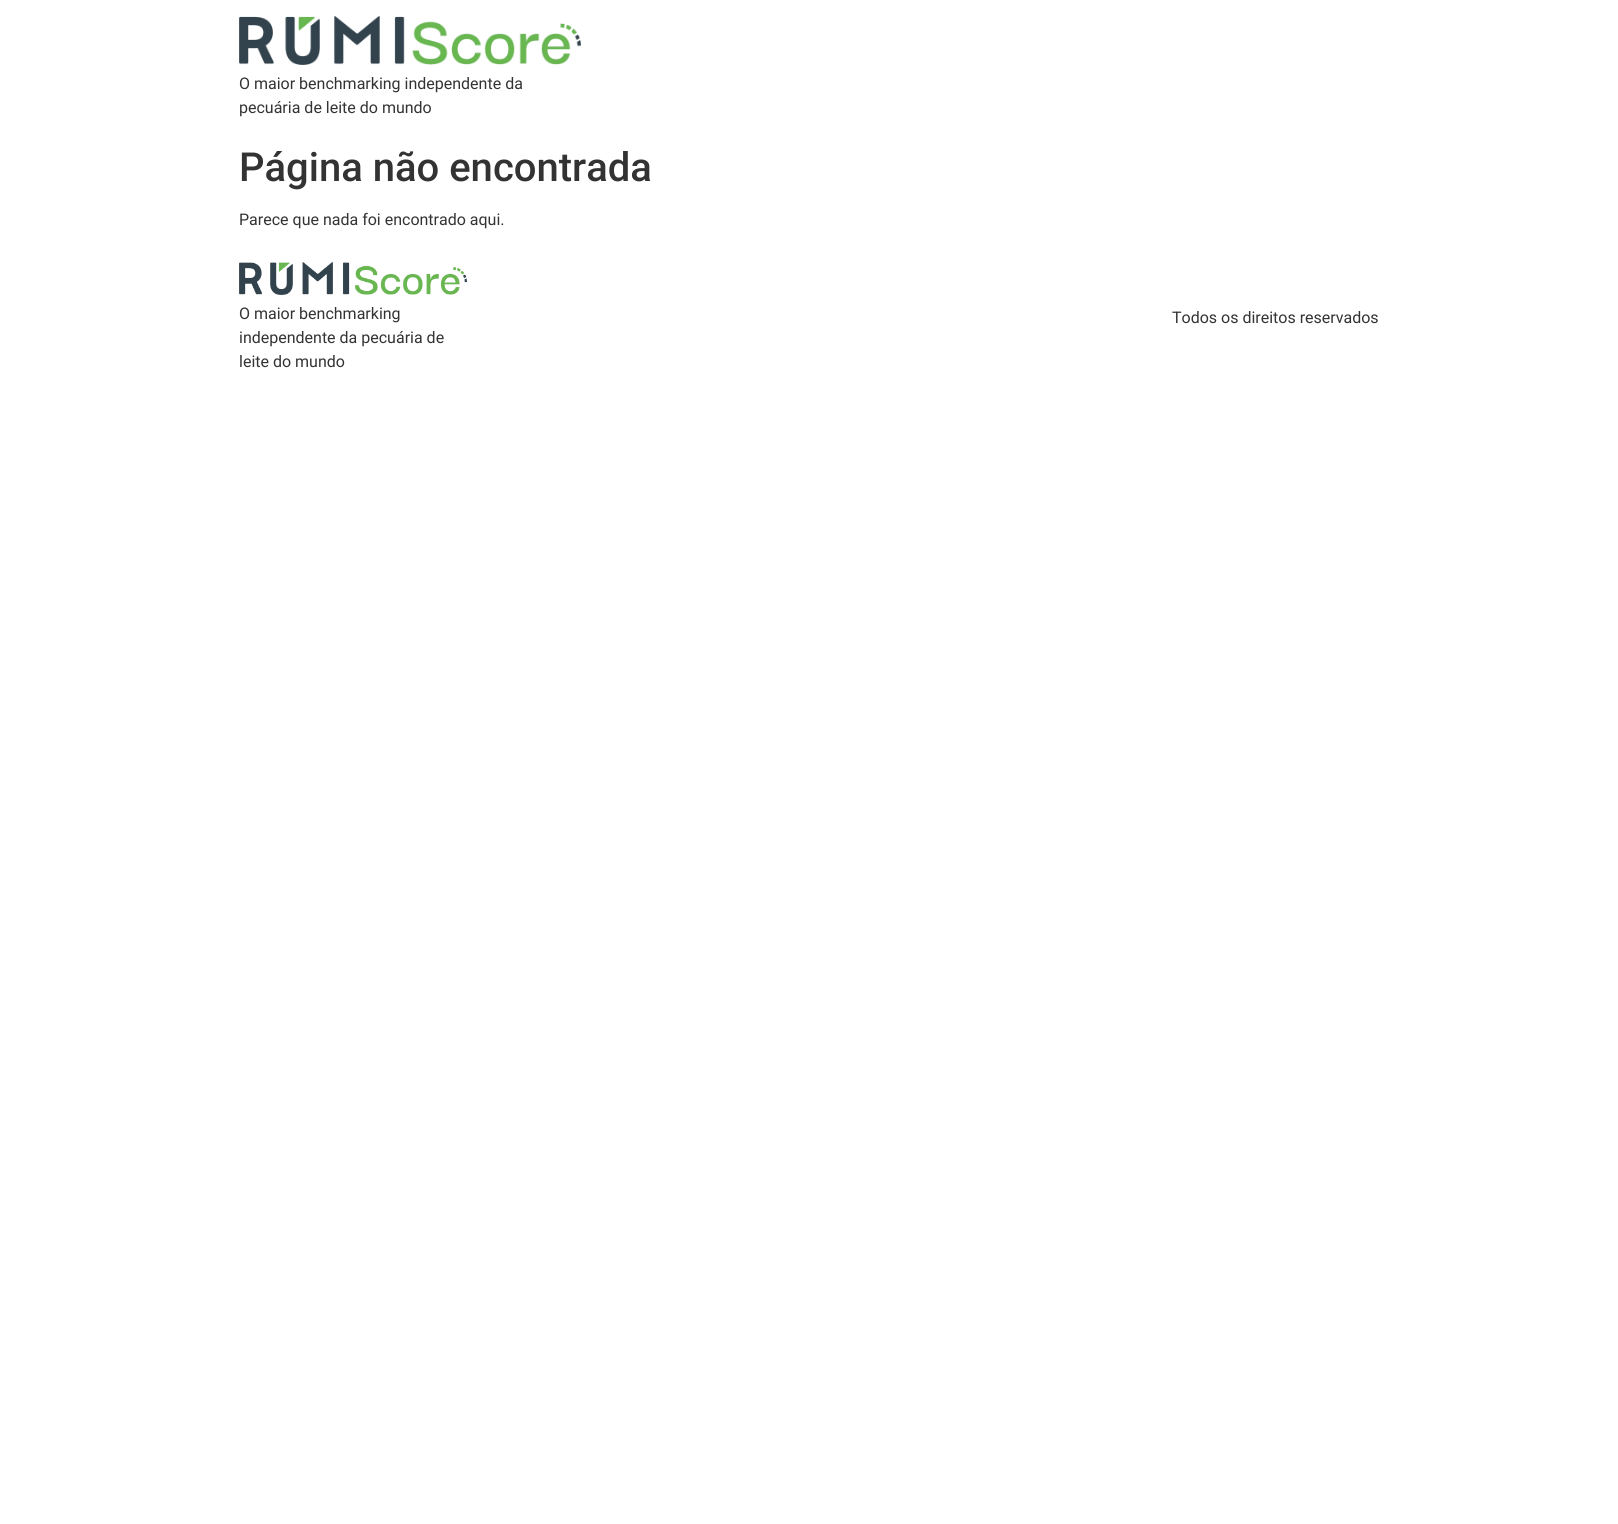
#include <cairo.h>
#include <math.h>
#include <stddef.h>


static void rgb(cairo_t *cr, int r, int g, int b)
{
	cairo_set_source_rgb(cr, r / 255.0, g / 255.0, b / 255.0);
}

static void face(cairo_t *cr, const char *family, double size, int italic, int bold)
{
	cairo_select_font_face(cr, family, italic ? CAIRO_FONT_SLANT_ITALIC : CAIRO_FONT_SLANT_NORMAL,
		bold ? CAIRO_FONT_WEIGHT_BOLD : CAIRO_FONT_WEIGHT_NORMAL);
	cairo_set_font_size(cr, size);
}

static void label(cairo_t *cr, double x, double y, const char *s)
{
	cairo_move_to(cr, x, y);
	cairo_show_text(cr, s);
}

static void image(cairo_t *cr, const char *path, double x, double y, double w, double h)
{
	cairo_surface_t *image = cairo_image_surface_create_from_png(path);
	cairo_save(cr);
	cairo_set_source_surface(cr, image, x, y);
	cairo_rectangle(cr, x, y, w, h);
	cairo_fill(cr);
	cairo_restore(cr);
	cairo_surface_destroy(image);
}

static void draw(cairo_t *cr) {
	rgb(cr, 255, 255, 255);
	cairo_paint(cr);
	image(cr, "image0.png", 239, 16, 342, 49);
	face(cr, "Roboto", 16, 0, 0);
	rgb(cr, 51, 51, 51);
	label(cr, 239, 89, "O maior benchmarking independente da");
	label(cr, 239, 113, "pecuária de leite do mundo");
	face(cr, "Roboto Medium", 40, 0, 0);
	label(cr, 239, 181, "Página não encontrada");
	face(cr, "Roboto", 16, 0, 0);
	label(cr, 239, 225, "Parece que nada foi encontrado aqui.");
	image(cr, "image1.png", 239, 262, 228, 33);
	label(cr, 239, 319, "O maior benchmarking");
	label(cr, 239, 343, "independente da pecuária de");
	label(cr, 239, 367, "leite do mundo");
	label(cr, 1172, 323, "Todos os direitos reservados");
}

int main(void) {
	cairo_surface_t *surface = cairo_image_surface_create(CAIRO_FORMAT_RGB24, 1618, 1524);
	cairo_t *cr = cairo_create(surface);
	cairo_font_options_t *options = cairo_font_options_create();
	cairo_font_options_set_hint_metrics(options, CAIRO_HINT_METRICS_OFF);
	cairo_font_options_set_hint_style(options, CAIRO_HINT_STYLE_NONE);
	cairo_set_font_options(cr, options);
	cairo_set_miter_limit(cr, 4);
	draw(cr);
	cairo_surface_write_to_png(surface, "render.png");
	cairo_font_options_destroy(options);
	cairo_destroy(cr);
	cairo_surface_destroy(surface);
	return 0;
}
